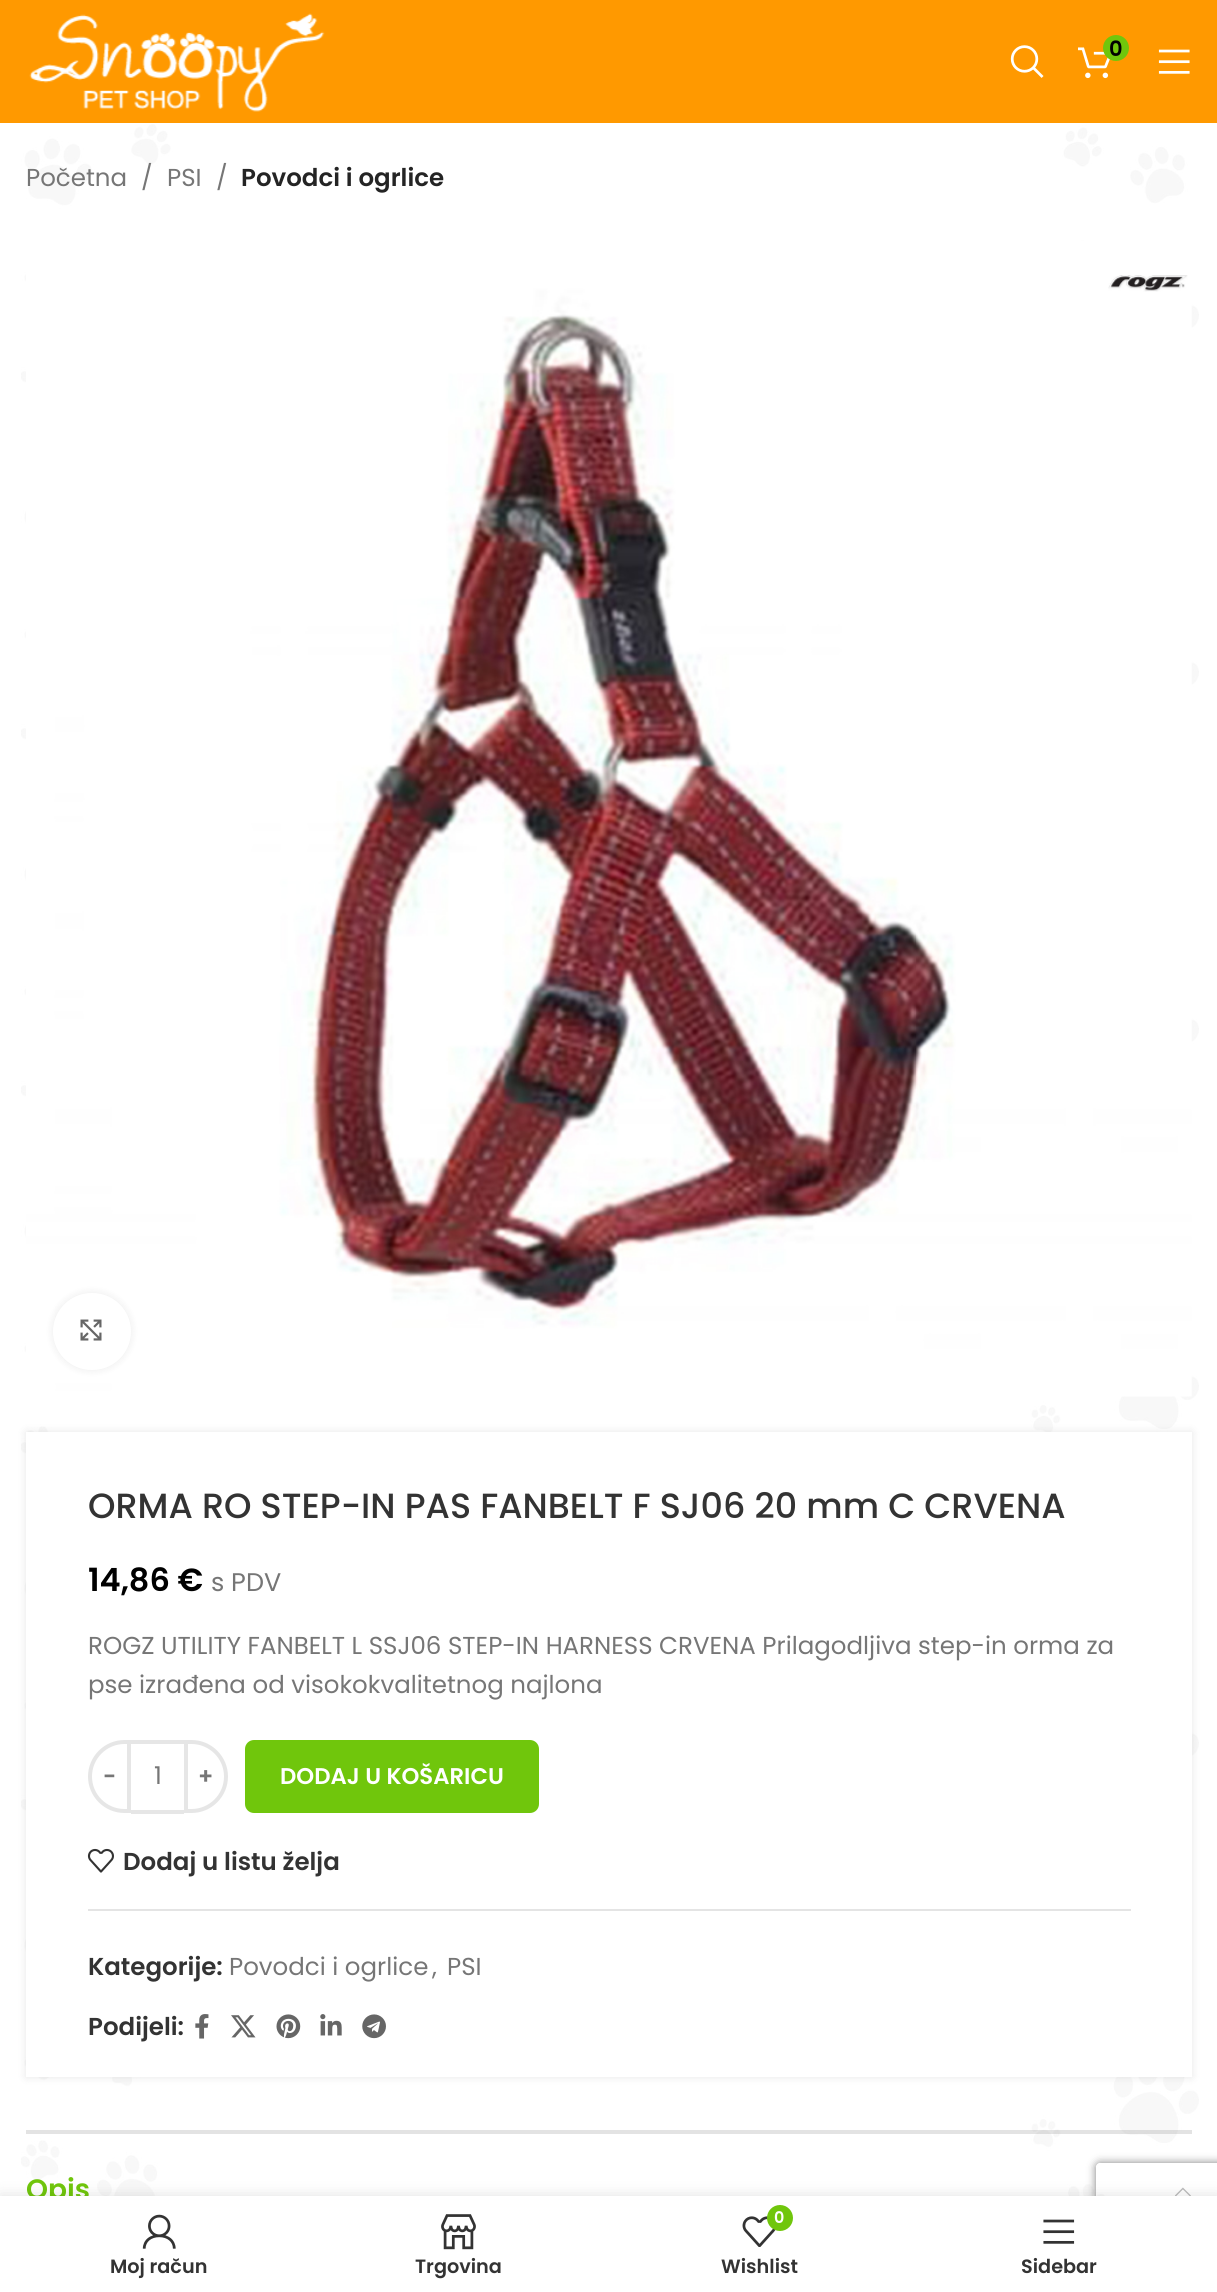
#include <cairo.h>
#include <math.h>
#include <stddef.h>


static void rgb(cairo_t *cr, int r, int g, int b)
{
	cairo_set_source_rgb(cr, r / 255.0, g / 255.0, b / 255.0);
}

static void face(cairo_t *cr, const char *family, double size, int italic, int bold)
{
	cairo_select_font_face(cr, family, italic ? CAIRO_FONT_SLANT_ITALIC : CAIRO_FONT_SLANT_NORMAL,
		bold ? CAIRO_FONT_WEIGHT_BOLD : CAIRO_FONT_WEIGHT_NORMAL);
	cairo_set_font_size(cr, size);
}

static void label(cairo_t *cr, double x, double y, const char *s)
{
	cairo_move_to(cr, x, y);
	cairo_show_text(cr, s);
}

static void rect(cairo_t *cr, double x, double y, double w, double h)
{
	cairo_rectangle(cr, x, y, w, h);
	cairo_fill(cr);
}

static void rrect(cairo_t *cr, double x, double y, double w, double h, double r)
{
	cairo_new_sub_path(cr);
	cairo_arc(cr, x + w - r, y + h - r, r, 0, M_PI / 2);
	cairo_arc(cr, x + r, y + h - r, r, M_PI / 2, M_PI);
	cairo_arc(cr, x + r, y + r, r, M_PI, 1.5 * M_PI);
	cairo_arc(cr, x + w - r, y + r, r, 1.5 * M_PI, 2 * M_PI);
	cairo_close_path(cr);
}

static void soft_shadow(cairo_t *cr, double x, double y, double w, double h, double r, double blur, double alpha)
{
	cairo_push_group_with_content(cr, CAIRO_CONTENT_ALPHA);
	cairo_set_operator(cr, CAIRO_OPERATOR_SOURCE);
	for (int i = 15; i >= -15 && fmin(w, h) + blur * i / 3 > 0; i -= 2) {
		double e = blur * i / 6;
		cairo_set_source_rgba(cr, 0, 0, 0, alpha * erfc((i - 1) / 8.5) / 2);
		rrect(cr, x - e, y - e, w + 2 * e, h + 2 * e, fmax(0, fmin(r + e + blur * .6, fmin(w, h) / 2 + e)));
		cairo_fill(cr);
	}
	cairo_pattern_t *soft = cairo_pop_group(cr);
	cairo_mask(cr, soft);
	cairo_pattern_destroy(soft);
}

static void image(cairo_t *cr, const char *path, double x, double y, double w, double h)
{
	cairo_surface_t *image = cairo_image_surface_create_from_png(path);
	cairo_save(cr);
	cairo_set_source_surface(cr, image, x, y);
	cairo_rectangle(cr, x, y, w, h);
	cairo_fill(cr);
	cairo_restore(cr);
	cairo_surface_destroy(image);
}

static void draw(cairo_t *cr) {
	rgb(cr, 255, 255, 255);
	cairo_paint(cr);
	rgb(cr, 255, 153, 0);
	rect(cr, 0, 0, 1217, 123);
	image(cr, "image0.png", 29, 13, 296, 99);
	image(cr, "image1.png", 1010, 45, 34, 33);
	image(cr, "image2.png", 1078, 47, 32, 32);
	rgb(cr, 112, 198, 12);
	cairo_arc(cr, 1116, 48, 13, 0, 2 * M_PI);
	cairo_fill(cr);
	face(cr, "Poppins SemiBold", 21, 0, 0);
	rgb(cr, 0, 0, 0);
	label(cr, 1109, 56, "0");
	image(cr, "image3.png", 1158, 49, 32, 25);
	image(cr, "image4.png", 21, 124, 1178, 2072);
	face(cr, "Poppins", 24.5, 0, 0);
	rgb(cr, 118, 118, 118);
	label(cr, 26, 186, "Početna");
	label(cr, 141, 186, "/");
	label(cr, 167, 186, "PSI");
	label(cr, 216, 186, "/");
	face(cr, "Poppins SemiBold", 24.5, 0, 0);
	rgb(cr, 36, 36, 36);
	label(cr, 241, 186, "Povodci i ogrlice");
	image(cr, "image5.png", 26, 241, 1166, 1156);
	image(cr, "image6.png", 1108, 275, 80, 17);
	rgb(cr, 0, 0, 0);
	soft_shadow(cr, 53, 1293, 78, 77, 38.5, 4.5, 0.08);
	rgb(cr, 255, 255, 255);
	rrect(cr, 53, 1293, 78, 77, 38.5);
	cairo_fill(cr);
	image(cr, "image7.png", 80, 1319, 22, 22);
	rgb(cr, 0, 0, 0);
	soft_shadow(cr, 26, 1432, 1166, 645, 0, 4.5, 0.1);
	rgb(cr, 255, 255, 255);
	rect(cr, 26, 1432, 1166, 645);
	face(cr, "Poppins Medium", 35, 0, 0);
	rgb(cr, 51, 51, 51);
	label(cr, 88, 1518, "ORMA RO STEP-IN PAS FANBELT F SJ06 20 mm C CRVENA");
	face(cr, "Poppins SemiBold", 32, 0, 0);
	rgb(cr, 0, 0, 0);
	label(cr, 88, 1591, "14,86 €");
	face(cr, "Poppins", 25.5, 0, 0);
	rgb(cr, 118, 118, 118);
	label(cr, 211, 1591, "s PDV");
	face(cr, "Poppins", 24.5, 0, 0);
	label(cr, 88, 1654, "ROGZ UTILITY FANBELT L SSJ06 STEP-IN HARNESS CRVENA Prilagodljiva step-in orma za");
	label(cr, 88, 1693, "pse izrađena od visokokvalitetnog najlona");
	cairo_new_path(cr);
	cairo_move_to(cr, 124.5, 1742);
	cairo_line_to(cr, 129, 1742);
	cairo_line_to(cr, 129, 1811);
	cairo_line_to(cr, 124.5, 1811);
	cairo_curve_to(cr, 105.5, 1811, 90, 1795.5, 90, 1776.5);
	cairo_curve_to(cr, 90, 1757.5, 105.5, 1742, 124.5, 1742);
	cairo_close_path(cr);
	rgb(cr, 230, 230, 230);
	cairo_set_line_width(cr, 4);
	cairo_stroke(cr);
	face(cr, "Poppins SemiBold", 22.75, 0, 0);
	rgb(cr, 118, 118, 118);
	label(cr, 103, 1784, "-");
	rgb(cr, 230, 230, 230);
	rect(cr, 131, 1740, 53, 4);
	rect(cr, 131, 1810, 53, 4);
	face(cr, "Poppins", 24.5, 0, 0);
	rgb(cr, 118, 118, 118);
	label(cr, 154, 1784, "1");
	cairo_new_path(cr);
	cairo_move_to(cr, 186, 1742);
	cairo_line_to(cr, 191.5, 1742);
	cairo_curve_to(cr, 210.5, 1742, 226, 1757.5, 226, 1776.5);
	cairo_curve_to(cr, 226, 1795.5, 210.5, 1811, 191.5, 1811);
	cairo_line_to(cr, 186, 1811);
	cairo_close_path(cr);
	rgb(cr, 230, 230, 230);
	cairo_stroke(cr);
	face(cr, "Poppins SemiBold", 22.75, 0, 0);
	rgb(cr, 118, 118, 118);
	label(cr, 198, 1784, "+");
	rgb(cr, 112, 198, 12);
	rrect(cr, 245, 1740, 294, 73, 9);
	cairo_fill(cr);
	rgb(cr, 255, 255, 255);
	label(cr, 280, 1784, "DODAJ U KOŠARICU");
	image(cr, "image8.png", 87, 1848, 27, 25);
	face(cr, "Poppins SemiBold", 24.5, 0, 0);
	rgb(cr, 51, 51, 51);
	label(cr, 123, 1870, "Dodaj u listu želja");
	rgb(cr, 228, 228, 228);
	rect(cr, 88, 1909, 1043, 2);
	rgb(cr, 51, 51, 51);
	label(cr, 88, 1975, "Kategorije:");
	face(cr, "Poppins", 24.5, 0, 0);
	rgb(cr, 118, 118, 118);
	label(cr, 229, 1975, "Povodci i ogrlice");
	label(cr, 432, 1975, ",");
	label(cr, 447, 1975, "PSI");
	face(cr, "Poppins SemiBold", 24.5, 0, 0);
	rgb(cr, 51, 51, 51);
	label(cr, 88, 2035, "Podijeli:");
	image(cr, "image9.png", 195, 2014, 14, 25);
	image(cr, "image10.png", 231, 2015, 25, 23);
	image(cr, "image11.png", 276, 2014, 25, 25);
	image(cr, "image12.png", 320, 2014, 22, 22);
	image(cr, "image13.png", 362, 2014, 24, 25);
	cairo_set_source_rgba(cr, 0, 0, 0, 0.11);
	rect(cr, 26, 2130, 1166, 4);
	face(cr, "Poppins SemiBold", 28, 0, 0);
	rgb(cr, 112, 198, 12);
	label(cr, 26, 2199, "Opis");
	image(cr, "image14.png", 1175, 2187, 16, 9);
	cairo_save(cr);
	cairo_set_fill_rule(cr, CAIRO_FILL_RULE_EVEN_ODD);
	cairo_new_path(cr);
	cairo_move_to(cr, 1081, 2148);
	cairo_line_to(cr, 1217, 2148);
	cairo_line_to(cr, 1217, 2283);
	cairo_line_to(cr, 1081, 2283);
	cairo_close_path(cr);
	cairo_move_to(cr, 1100, 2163);
	cairo_line_to(cr, 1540, 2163);
	cairo_curve_to(cr, 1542, 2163, 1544, 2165, 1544, 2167);
	cairo_line_to(cr, 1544, 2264);
	cairo_curve_to(cr, 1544, 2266, 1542, 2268, 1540, 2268);
	cairo_line_to(cr, 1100, 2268);
	cairo_curve_to(cr, 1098, 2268, 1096, 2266, 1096, 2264);
	cairo_line_to(cr, 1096, 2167);
	cairo_curve_to(cr, 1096, 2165, 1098, 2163, 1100, 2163);
	cairo_close_path(cr);
	cairo_clip(cr);
	rgb(cr, 128, 128, 128);
	soft_shadow(cr, 1096, 2163, 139, 105, 4, 4.5, 1);
	cairo_restore(cr);
	rgb(cr, 0, 0, 0);
	soft_shadow(cr, 0, 2196, 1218, 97, 0, 8, 0.12);
	rgb(cr, 255, 255, 255);
	rect(cr, 0, 2196, 1217, 96);
	image(cr, "image15.png", 142, 2214, 34, 35);
	face(cr, "Poppins SemiBold", 19.25, 0, 0);
	rgb(cr, 51, 51, 51);
	label(cr, 110, 2273, "Moj račun");
	image(cr, "image16.png", 441, 2214, 35, 36);
	label(cr, 415, 2273, "Trgovina");
	image(cr, "image17.png", 742, 2216, 34, 31);
	rgb(cr, 112, 198, 12);
	cairo_arc(cr, 780, 2218, 13, 0, 2 * M_PI);
	cairo_fill(cr);
	face(cr, "Poppins SemiBold", 16, 0, 0);
	rgb(cr, 255, 255, 255);
	label(cr, 774, 2223, "0");
	face(cr, "Poppins SemiBold", 19.25, 0, 0);
	rgb(cr, 51, 51, 51);
	label(cr, 721, 2273, "Wishlist");
	image(cr, "image18.png", 1043, 2219, 32, 25);
	label(cr, 1021, 2273, "Sidebar");
}

int main(void) {
	cairo_surface_t *surface = cairo_image_surface_create(CAIRO_FORMAT_RGB24, 1217, 2292);
	cairo_t *cr = cairo_create(surface);
	cairo_font_options_t *options = cairo_font_options_create();
	cairo_font_options_set_hint_metrics(options, CAIRO_HINT_METRICS_OFF);
	cairo_font_options_set_hint_style(options, CAIRO_HINT_STYLE_NONE);
	cairo_set_font_options(cr, options);
	cairo_set_miter_limit(cr, 4);
	draw(cr);
	cairo_surface_write_to_png(surface, "render.png");
	cairo_font_options_destroy(options);
	cairo_destroy(cr);
	cairo_surface_destroy(surface);
	return 0;
}
